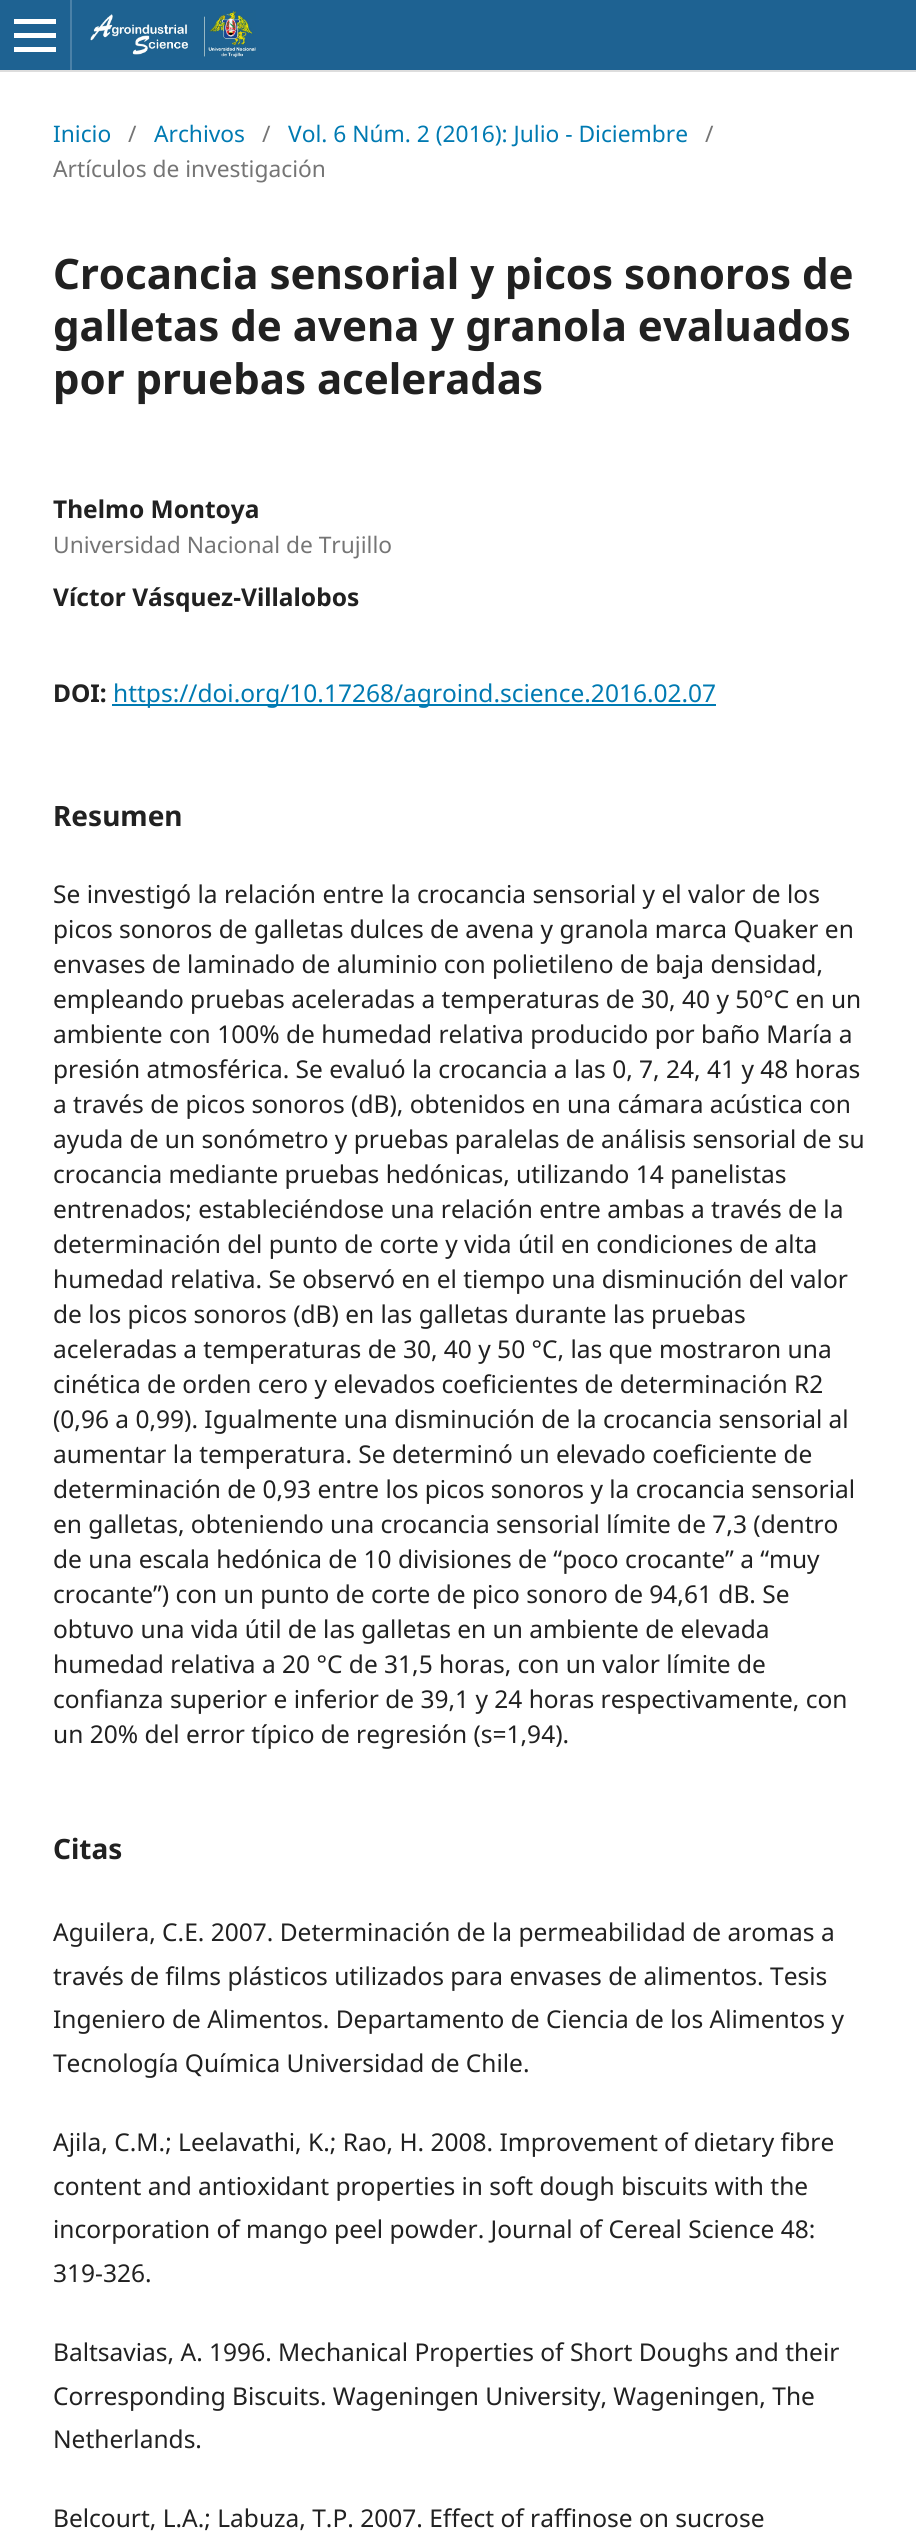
#include <cairo.h>
#include <math.h>
#include <stddef.h>


static void rgb(cairo_t *cr, int r, int g, int b)
{
	cairo_set_source_rgb(cr, r / 255.0, g / 255.0, b / 255.0);
}

static void face(cairo_t *cr, const char *family, double size, int italic, int bold)
{
	cairo_select_font_face(cr, family, italic ? CAIRO_FONT_SLANT_ITALIC : CAIRO_FONT_SLANT_NORMAL,
		bold ? CAIRO_FONT_WEIGHT_BOLD : CAIRO_FONT_WEIGHT_NORMAL);
	cairo_set_font_size(cr, size);
}

static void label(cairo_t *cr, double x, double y, const char *s)
{
	cairo_move_to(cr, x, y);
	cairo_show_text(cr, s);
}

static void rect(cairo_t *cr, double x, double y, double w, double h)
{
	cairo_rectangle(cr, x, y, w, h);
	cairo_fill(cr);
}

static void image(cairo_t *cr, const char *path, double x, double y, double w, double h)
{
	cairo_surface_t *image = cairo_image_surface_create_from_png(path);
	cairo_save(cr);
	cairo_set_source_surface(cr, image, x, y);
	cairo_rectangle(cr, x, y, w, h);
	cairo_fill(cr);
	cairo_restore(cr);
	cairo_surface_destroy(image);
}

static void draw(cairo_t *cr) {
	rgb(cr, 255, 255, 255);
	cairo_paint(cr);
	rgb(cr, 30, 98, 146);
	rect(cr, 0, 0, 916, 70);
	rgb(cr, 221, 221, 221);
	rect(cr, 0, 70, 916, 2);
	rgb(cr, 75, 129, 168);
	rect(cr, 70, 0, 2, 70);
	rgb(cr, 255, 255, 255);
	rect(cr, 14, 47, 42, 5);
	rect(cr, 14, 19, 42, 5);
	rect(cr, 14, 33, 42, 5);
	image(cr, "image0.png", 90, 10, 166, 48);
	face(cr, "Noto Sans", 22.75, 0, 0);
	rgb(cr, 0, 122, 178);
	label(cr, 53, 142, "Inicio");
	rgb(cr, 117, 117, 117);
	label(cr, 128, 142, "/");
	rgb(cr, 0, 122, 178);
	label(cr, 154, 142, "Archivos");
	rgb(cr, 117, 117, 117);
	label(cr, 262, 142, "/");
	rgb(cr, 0, 122, 178);
	label(cr, 288, 142, "Vol. 6 Núm. 2 (2016): Julio - Diciembre");
	rgb(cr, 117, 117, 117);
	label(cr, 705, 142, "/");
	label(cr, 53, 177, "Artículos de investigación");
	face(cr, "Noto Sans", 42, 0, 1);
	rgb(cr, 33, 33, 33);
	label(cr, 53, 289, "Crocancia sensorial y picos sonoros de");
	label(cr, 53, 341, "galletas de avena y granola evaluados");
	label(cr, 53, 394, "por pruebas aceleradas");
	face(cr, "Noto Sans", 24.5, 0, 1);
	label(cr, 53, 518, "Thelmo Montoya");
	face(cr, "Noto Sans", 22.75, 0, 0);
	rgb(cr, 117, 117, 117);
	label(cr, 53, 553, "Universidad Nacional de Trujillo");
	face(cr, "Noto Sans", 24.5, 0, 1);
	rgb(cr, 33, 33, 33);
	label(cr, 53, 606, "Víctor Vásquez-Villalobos");
	label(cr, 53, 702, "DOI:");
	rgb(cr, 0, 122, 178);
	rect(cr, 112, 704, 604, 2);
	face(cr, "Noto Sans", 24.5, 0, 0);
	label(cr, 113, 702, "https://doi.org/10.17268/agroind.science.2016.02.07");
	face(cr, "Noto Sans", 28, 0, 1);
	rgb(cr, 33, 33, 33);
	label(cr, 53, 826, "Resumen");
	face(cr, "Noto Sans", 24.5, 0, 0);
	label(cr, 53, 903, "Se investigó la relación entre la crocancia sensorial y el valor de los");
	label(cr, 53, 938, "picos sonoros de galletas dulces de avena y granola marca Quaker en");
	label(cr, 53, 973, "envases de laminado de aluminio con polietileno de baja densidad,");
	label(cr, 53, 1008, "empleando pruebas aceleradas a temperaturas de 30, 40 y 50°C en un");
	label(cr, 53, 1043, "ambiente con 100% de humedad relativa producido por baño María a");
	label(cr, 53, 1078, "presión atmosférica. Se evaluó la crocancia a las 0, 7, 24, 41 y 48 horas");
	label(cr, 53, 1113, "a través de picos sonoros (dB), obtenidos en una cámara acústica con");
	label(cr, 53, 1148, "ayuda de un sonómetro y pruebas paralelas de análisis sensorial de su");
	label(cr, 53, 1183, "crocancia mediante pruebas hedónicas, utilizando 14 panelistas");
	label(cr, 53, 1218, "entrenados; estableciéndose una relación entre ambas a través de la");
	label(cr, 53, 1253, "determinación del punto de corte y vida útil en condiciones de alta");
	label(cr, 53, 1288, "humedad relativa. Se observó en el tiempo una disminución del valor");
	label(cr, 53, 1323, "de los picos sonoros (dB) en las galletas durante las pruebas");
	label(cr, 53, 1358, "aceleradas a temperaturas de 30, 40 y 50 °C, las que mostraron una");
	label(cr, 53, 1393, "cinética de orden cero y elevados coeficientes de determinación R2");
	label(cr, 53, 1428, "(0,96 a 0,99). Igualmente una disminución de la crocancia sensorial al");
	label(cr, 53, 1463, "aumentar la temperatura. Se determinó un elevado coeficiente de");
	label(cr, 53, 1498, "determinación de 0,93 entre los picos sonoros y la crocancia sensorial");
	label(cr, 53, 1533, "en galletas, obteniendo una crocancia sensorial límite de 7,3 (dentro");
	label(cr, 53, 1568, "de una escala hedónica de 10 divisiones de “poco crocante” a “muy");
	label(cr, 53, 1603, "crocante”) con un punto de corte de pico sonoro de 94,61 dB. Se");
	label(cr, 53, 1638, "obtuvo una vida útil de las galletas en un ambiente de elevada");
	label(cr, 53, 1673, "humedad relativa a 20 °C de 31,5 horas, con un valor límite de");
	label(cr, 53, 1708, "confianza superior e inferior de 39,1 y 24 horas respectivamente, con");
	label(cr, 53, 1743, "un 20% del error típico de regresión (s=1,94).");
	face(cr, "Noto Sans", 28, 0, 1);
	label(cr, 53, 1859, "Citas");
	face(cr, "Noto Sans", 24.5, 0, 0);
	label(cr, 53, 1941, "Aguilera, C.E. 2007. Determinación de la permeabilidad de aromas a");
	label(cr, 53, 1985, "través de films plásticos utilizados para envases de alimentos. Tesis");
	label(cr, 53, 2028, "Ingeniero de Alimentos. Departamento de Ciencia de los Alimentos y");
	label(cr, 53, 2072, "Tecnología Química Universidad de Chile.");
	label(cr, 53, 2151, "Ajila, C.M.; Leelavathi, K.; Rao, H. 2008. Improvement of dietary fibre");
	label(cr, 53, 2195, "content and antioxidant properties in soft dough biscuits with the");
	label(cr, 53, 2238, "incorporation of mango peel powder. Journal of Cereal Science 48:");
	label(cr, 53, 2282, "319-326.");
	label(cr, 53, 2361, "Baltsavias, A. 1996. Mechanical Properties of Short Doughs and their");
	label(cr, 53, 2405, "Corresponding Biscuits. Wageningen University, Wageningen, The");
	label(cr, 53, 2448, "Netherlands.");
	label(cr, 53, 2527, "Belcourt, L.A.; Labuza, T.P. 2007. Effect of raffinose on sucrose");
}

int main(void) {
	cairo_surface_t *surface = cairo_image_surface_create(CAIRO_FORMAT_RGB24, 916, 2545);
	cairo_t *cr = cairo_create(surface);
	cairo_font_options_t *options = cairo_font_options_create();
	cairo_font_options_set_hint_metrics(options, CAIRO_HINT_METRICS_OFF);
	cairo_font_options_set_hint_style(options, CAIRO_HINT_STYLE_NONE);
	cairo_set_font_options(cr, options);
	cairo_set_miter_limit(cr, 4);
	draw(cr);
	cairo_surface_write_to_png(surface, "render.png");
	cairo_font_options_destroy(options);
	cairo_destroy(cr);
	cairo_surface_destroy(surface);
	return 0;
}
